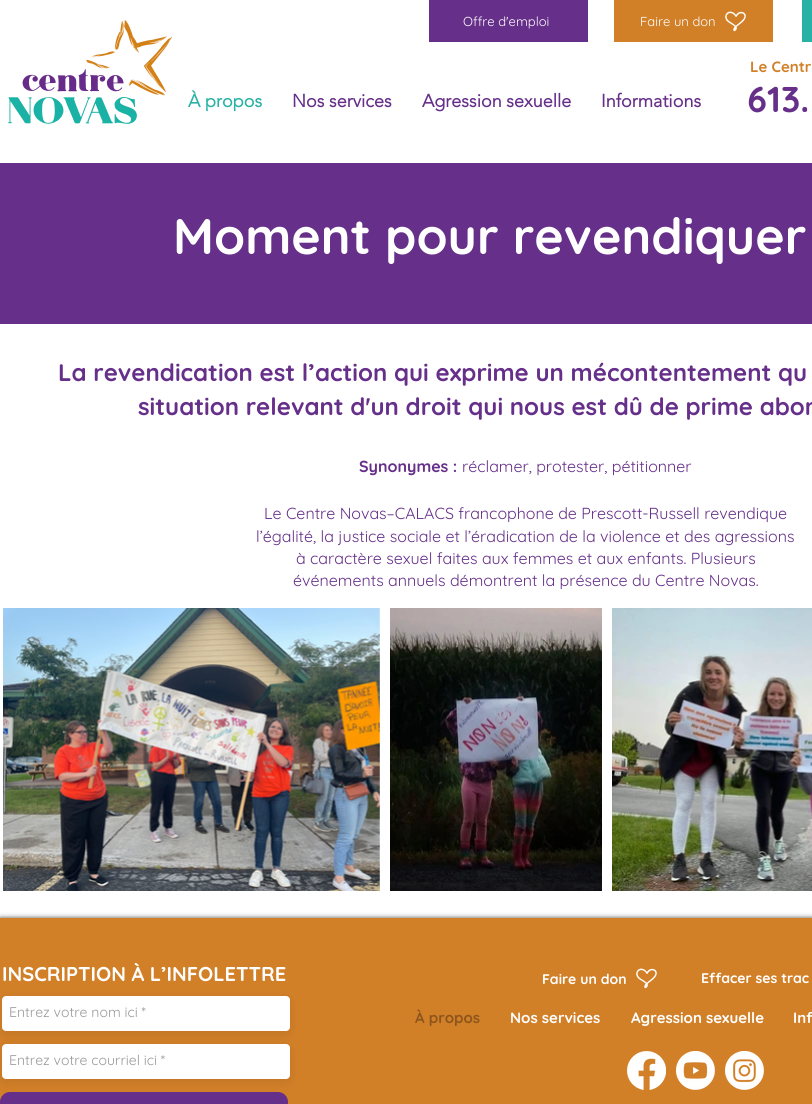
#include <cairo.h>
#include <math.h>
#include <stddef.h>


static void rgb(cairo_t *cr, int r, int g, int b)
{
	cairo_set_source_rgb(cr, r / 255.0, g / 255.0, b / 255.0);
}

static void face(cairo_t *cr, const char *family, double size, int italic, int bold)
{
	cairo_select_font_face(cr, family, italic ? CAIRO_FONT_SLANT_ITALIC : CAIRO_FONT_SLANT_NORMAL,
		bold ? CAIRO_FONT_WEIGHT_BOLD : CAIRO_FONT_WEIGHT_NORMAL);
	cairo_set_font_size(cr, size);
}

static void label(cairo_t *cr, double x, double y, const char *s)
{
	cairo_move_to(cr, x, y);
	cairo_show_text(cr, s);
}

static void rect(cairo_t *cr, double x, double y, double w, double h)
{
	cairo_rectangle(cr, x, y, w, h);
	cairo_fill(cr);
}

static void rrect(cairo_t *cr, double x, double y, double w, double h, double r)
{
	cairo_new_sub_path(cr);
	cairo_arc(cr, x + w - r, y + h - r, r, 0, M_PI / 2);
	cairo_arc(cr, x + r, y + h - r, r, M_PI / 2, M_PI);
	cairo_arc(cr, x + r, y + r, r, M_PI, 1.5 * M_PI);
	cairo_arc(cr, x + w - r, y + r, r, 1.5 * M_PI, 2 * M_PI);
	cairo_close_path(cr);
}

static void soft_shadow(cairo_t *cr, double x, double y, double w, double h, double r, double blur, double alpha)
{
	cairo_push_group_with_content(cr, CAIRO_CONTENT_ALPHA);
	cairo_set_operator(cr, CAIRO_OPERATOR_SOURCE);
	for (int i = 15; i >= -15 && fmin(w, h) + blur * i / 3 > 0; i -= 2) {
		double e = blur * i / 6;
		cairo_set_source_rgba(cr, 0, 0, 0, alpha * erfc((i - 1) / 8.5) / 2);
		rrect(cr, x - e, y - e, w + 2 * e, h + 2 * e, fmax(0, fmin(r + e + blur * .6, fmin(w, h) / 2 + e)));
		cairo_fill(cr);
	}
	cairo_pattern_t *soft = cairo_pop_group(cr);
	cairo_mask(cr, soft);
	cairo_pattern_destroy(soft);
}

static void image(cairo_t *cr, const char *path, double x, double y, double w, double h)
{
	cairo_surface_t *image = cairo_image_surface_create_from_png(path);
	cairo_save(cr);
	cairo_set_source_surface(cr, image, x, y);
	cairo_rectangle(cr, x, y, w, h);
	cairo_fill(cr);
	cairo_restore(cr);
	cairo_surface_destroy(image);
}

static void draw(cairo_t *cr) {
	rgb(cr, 255, 255, 255);
	cairo_paint(cr);
	image(cr, "image0.png", 8, 20, 164, 104);
	rgb(cr, 102, 47, 137);
	rect(cr, 429, 0, 159, 42);
	face(cr, "Quicksand", 13, 0, 0);
	rgb(cr, 255, 255, 255);
	label(cr, 463, 26, "Offre d'emploi");
	rgb(cr, 210, 128, 40);
	rect(cr, 614, 0, 159, 42);
	rgb(cr, 255, 255, 255);
	label(cr, 640, 26, "Faire un don");
	image(cr, "image1.png", 725, 11, 21, 21);
	rgb(cr, 40, 178, 165);
	rect(cr, 802, 0, 10, 42);
	face(cr, "Quicksand", 15, 0, 1);
	rgb(cr, 210, 128, 40);
	label(cr, 750, 72, "Le Centr");
	face(cr, "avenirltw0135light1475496", 18, 0, 1);
	rgb(cr, 40, 178, 165);
	label(cr, 188, 107, "À propos");
	rgb(cr, 102, 47, 137);
	label(cr, 292, 107, "Nos services");
	label(cr, 422, 107, "Agression sexuelle");
	label(cr, 601, 107, "Informations");
	face(cr, "Quicksand", 36, 0, 1);
	label(cr, 747, 112, "613.");
	rect(cr, 0, 163, 812, 161);
	face(cr, "Quicksand", 50, 0, 1);
	rgb(cr, 255, 255, 255);
	label(cr, 173, 254, "Moment pour revendiquer");
	face(cr, "Quicksand", 24, 0, 1);
	rgb(cr, 102, 47, 137);
	label(cr, 58, 381, "La revendication est l’action qui exprime un mécontentement qu");
	label(cr, 138, 415, "situation relevant d'un droit qui nous est dû de prime abor");
	face(cr, "Quicksand", 16, 0, 1);
	label(cr, 359, 472, "Synonymes :");
	face(cr, "Quicksand", 16, 0, 0);
	label(cr, 462, 472, "réclamer, protester, pétitionner");
	label(cr, 264, 519, "Le Centre Novas–CALACS francophone de Prescott-Russell revendique");
	label(cr, 256, 542, "l’égalité, la justice sociale et l’éradication de la violence et des agressions");
	label(cr, 296, 564, "à caractère sexuel faites aux femmes et aux enfants. Plusieurs");
	label(cr, 293, 586, "événements annuels démontrent la présence du Centre Novas.");
	image(cr, "image2.png", 3, 608, 377, 283);
	image(cr, "image3.png", 390, 608, 212, 283);
	image(cr, "image4.png", 612, 608, 200, 283);
	rgb(cr, 0, 0, 0);
	soft_shadow(cr, 0, 918, 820, 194, 0, 2.5, 0.7);
	rgb(cr, 210, 128, 40);
	rect(cr, 0, 918, 812, 186);
	face(cr, "Quicksand", 20, 0, 1);
	rgb(cr, 255, 255, 255);
	label(cr, 2, 981, "INSCRIPTION À L’INFOLETTRE");
	rgb(cr, 0, 0, 0);
	soft_shadow(cr, 1, 998, 290, 37, 5, 5, 0.08);
	rgb(cr, 255, 255, 255);
	rrect(cr, 2, 996, 288, 35, 4);
	cairo_fill(cr);
	face(cr, "Quicksand", 14, 0, 0);
	rgb(cr, 153, 153, 153);
	label(cr, 9, 1017, "Entrez votre nom ici *");
	rgb(cr, 0, 0, 0);
	soft_shadow(cr, 1, 1046, 290, 37, 5, 5, 0.08);
	rgb(cr, 255, 255, 255);
	rrect(cr, 2, 1044, 288, 35, 4);
	cairo_fill(cr);
	rgb(cr, 153, 153, 153);
	label(cr, 9, 1065, "Entrez votre courriel ici *");
	rgb(cr, 102, 47, 137);
	rrect(cr, 0, 1092, 288, 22, 10);
	cairo_fill(cr);
	face(cr, "Quicksand", 14, 0, 1);
	rgb(cr, 255, 255, 255);
	label(cr, 542, 984, "Faire un don");
	image(cr, "image1.png", 636, 968, 21, 21);
	label(cr, 701, 983, "Effacer ses trac");
	face(cr, "Quicksand", 15, 0, 1);
	rgb(cr, 140, 85, 27);
	label(cr, 415, 1023, "À propos");
	rgb(cr, 255, 255, 255);
	label(cr, 510, 1023, "Nos services");
	label(cr, 631, 1023, "Agression sexuelle");
	label(cr, 793, 1023, "Inf");
	image(cr, "image5.png", 627, 1051, 39, 39);
	image(cr, "image6.png", 676, 1051, 39, 39);
	image(cr, "image7.png", 725, 1051, 39, 39);
}

int main(void) {
	cairo_surface_t *surface = cairo_image_surface_create(CAIRO_FORMAT_RGB24, 812, 1104);
	cairo_t *cr = cairo_create(surface);
	cairo_font_options_t *options = cairo_font_options_create();
	cairo_font_options_set_hint_metrics(options, CAIRO_HINT_METRICS_OFF);
	cairo_font_options_set_hint_style(options, CAIRO_HINT_STYLE_NONE);
	cairo_set_font_options(cr, options);
	cairo_set_miter_limit(cr, 4);
	draw(cr);
	cairo_surface_write_to_png(surface, "render.png");
	cairo_font_options_destroy(options);
	cairo_destroy(cr);
	cairo_surface_destroy(surface);
	return 0;
}
